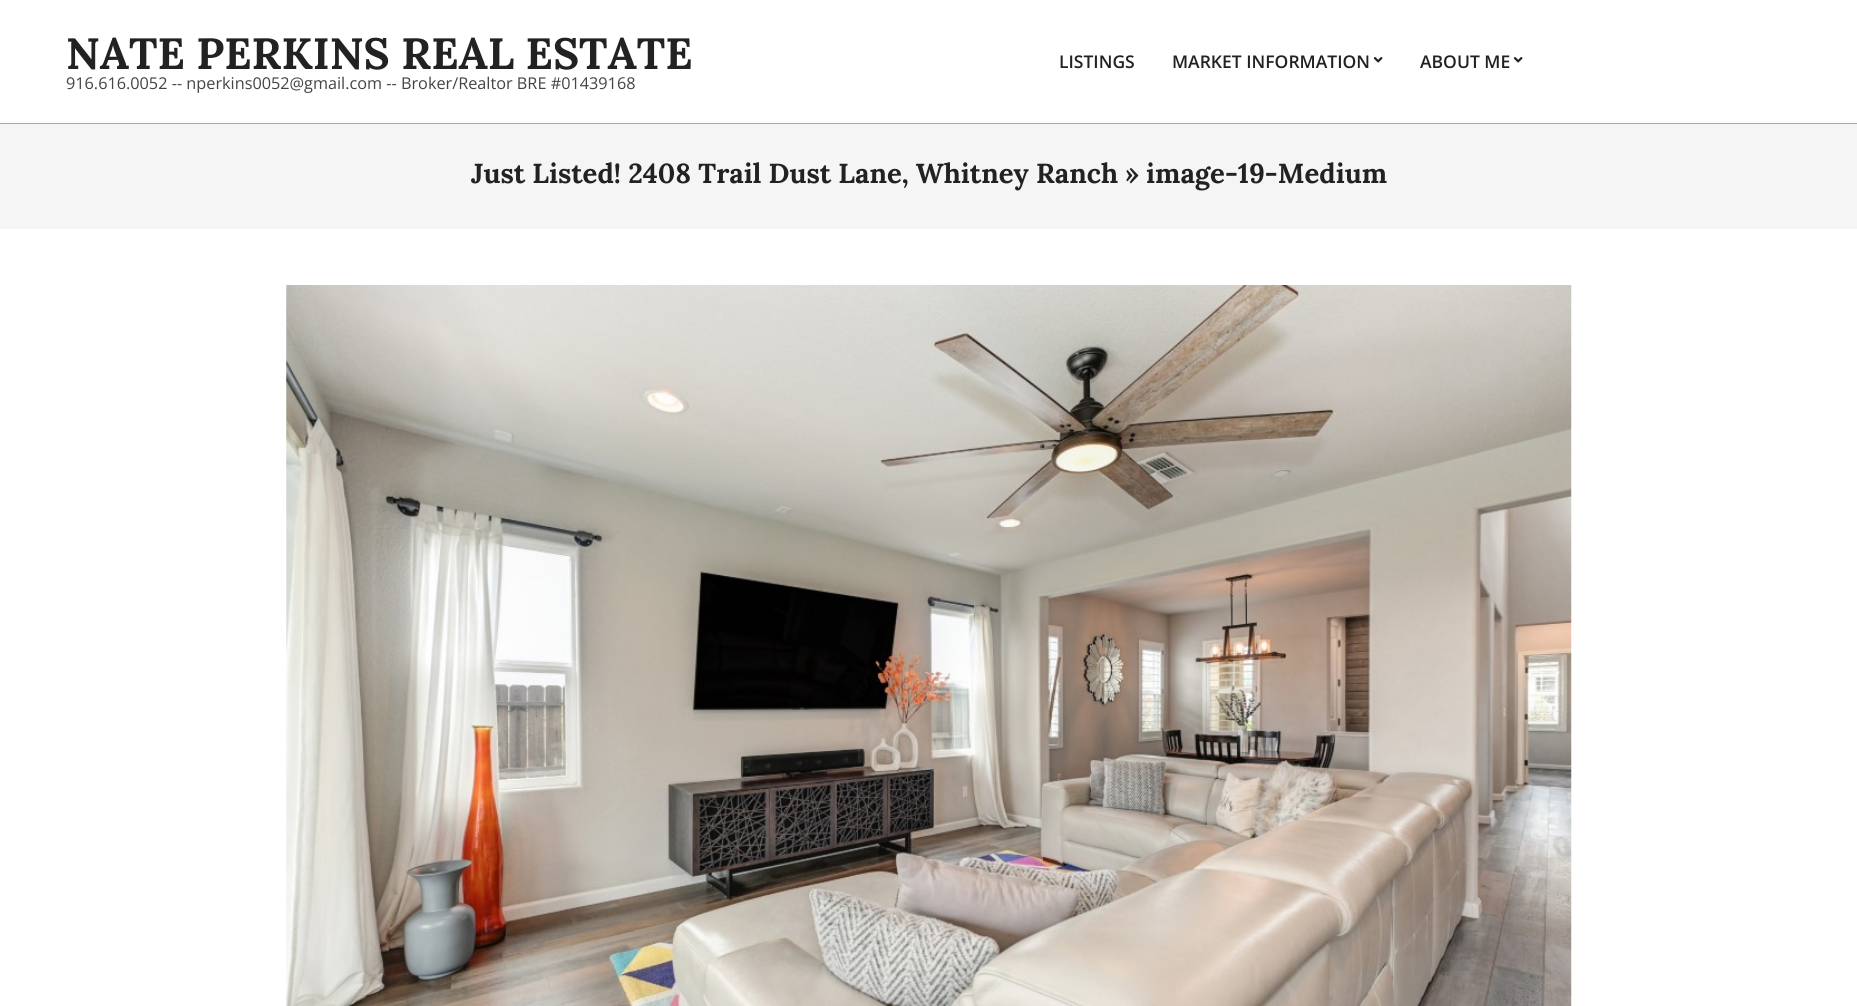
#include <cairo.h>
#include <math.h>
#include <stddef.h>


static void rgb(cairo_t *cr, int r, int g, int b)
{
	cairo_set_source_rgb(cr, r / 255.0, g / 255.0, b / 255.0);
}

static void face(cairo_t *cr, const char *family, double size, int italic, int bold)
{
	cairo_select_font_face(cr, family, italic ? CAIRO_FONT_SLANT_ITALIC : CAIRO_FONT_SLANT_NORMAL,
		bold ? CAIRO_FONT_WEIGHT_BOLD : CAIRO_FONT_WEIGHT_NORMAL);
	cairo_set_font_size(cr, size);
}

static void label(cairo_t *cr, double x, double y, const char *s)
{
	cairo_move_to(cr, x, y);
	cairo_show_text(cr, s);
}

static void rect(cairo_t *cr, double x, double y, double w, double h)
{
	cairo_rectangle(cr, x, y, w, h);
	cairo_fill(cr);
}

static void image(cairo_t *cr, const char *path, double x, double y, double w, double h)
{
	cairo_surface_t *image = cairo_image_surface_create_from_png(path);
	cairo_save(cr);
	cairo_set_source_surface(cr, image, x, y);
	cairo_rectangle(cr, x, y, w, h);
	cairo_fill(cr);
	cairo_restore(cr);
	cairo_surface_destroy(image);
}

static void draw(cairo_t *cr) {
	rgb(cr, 255, 255, 255);
	cairo_paint(cr);
	rgb(cr, 171, 171, 171);
	rect(cr, 0, 123, 1857, 1);
	face(cr, "Lora", 43.75, 0, 1);
	rgb(cr, 34, 34, 34);
	label(cr, 66, 69, "NATE PERKINS REAL ESTATE");
	face(cr, "Open Sans", 16.25, 0, 0);
	rgb(cr, 68, 68, 68);
	label(cr, 66, 89, "916.616.0052 -- nperkins0052@gmail.com -- Broker/Realtor BRE #01439168");
	face(cr, "Open Sans SemiBold", 17.5, 0, 0);
	rgb(cr, 34, 34, 34);
	label(cr, 1059, 68, "LISTINGS");
	label(cr, 1172, 68, "MARKET INFORMATION");
	image(cr, "image0.png", 1373, 57, 10, 6);
	label(cr, 1420, 68, "ABOUT ME");
	image(cr, "image0.png", 1513, 57, 10, 6);
	rgb(cr, 245, 245, 245);
	rect(cr, 0, 124, 1857, 105);
	face(cr, "Lora", 27.5, 0, 1);
	rgb(cr, 34, 34, 34);
	label(cr, 471, 183, "Just Listed! 2408 Trail Dust Lane, Whitney Ranch » image-19-Medium");
	image(cr, "image1.png", 286, 285, 1286, 721);
}

int main(void) {
	cairo_surface_t *surface = cairo_image_surface_create(CAIRO_FORMAT_RGB24, 1857, 1006);
	cairo_t *cr = cairo_create(surface);
	cairo_font_options_t *options = cairo_font_options_create();
	cairo_font_options_set_hint_metrics(options, CAIRO_HINT_METRICS_OFF);
	cairo_font_options_set_hint_style(options, CAIRO_HINT_STYLE_NONE);
	cairo_set_font_options(cr, options);
	cairo_set_miter_limit(cr, 4);
	draw(cr);
	cairo_surface_write_to_png(surface, "render.png");
	cairo_font_options_destroy(options);
	cairo_destroy(cr);
	cairo_surface_destroy(surface);
	return 0;
}
